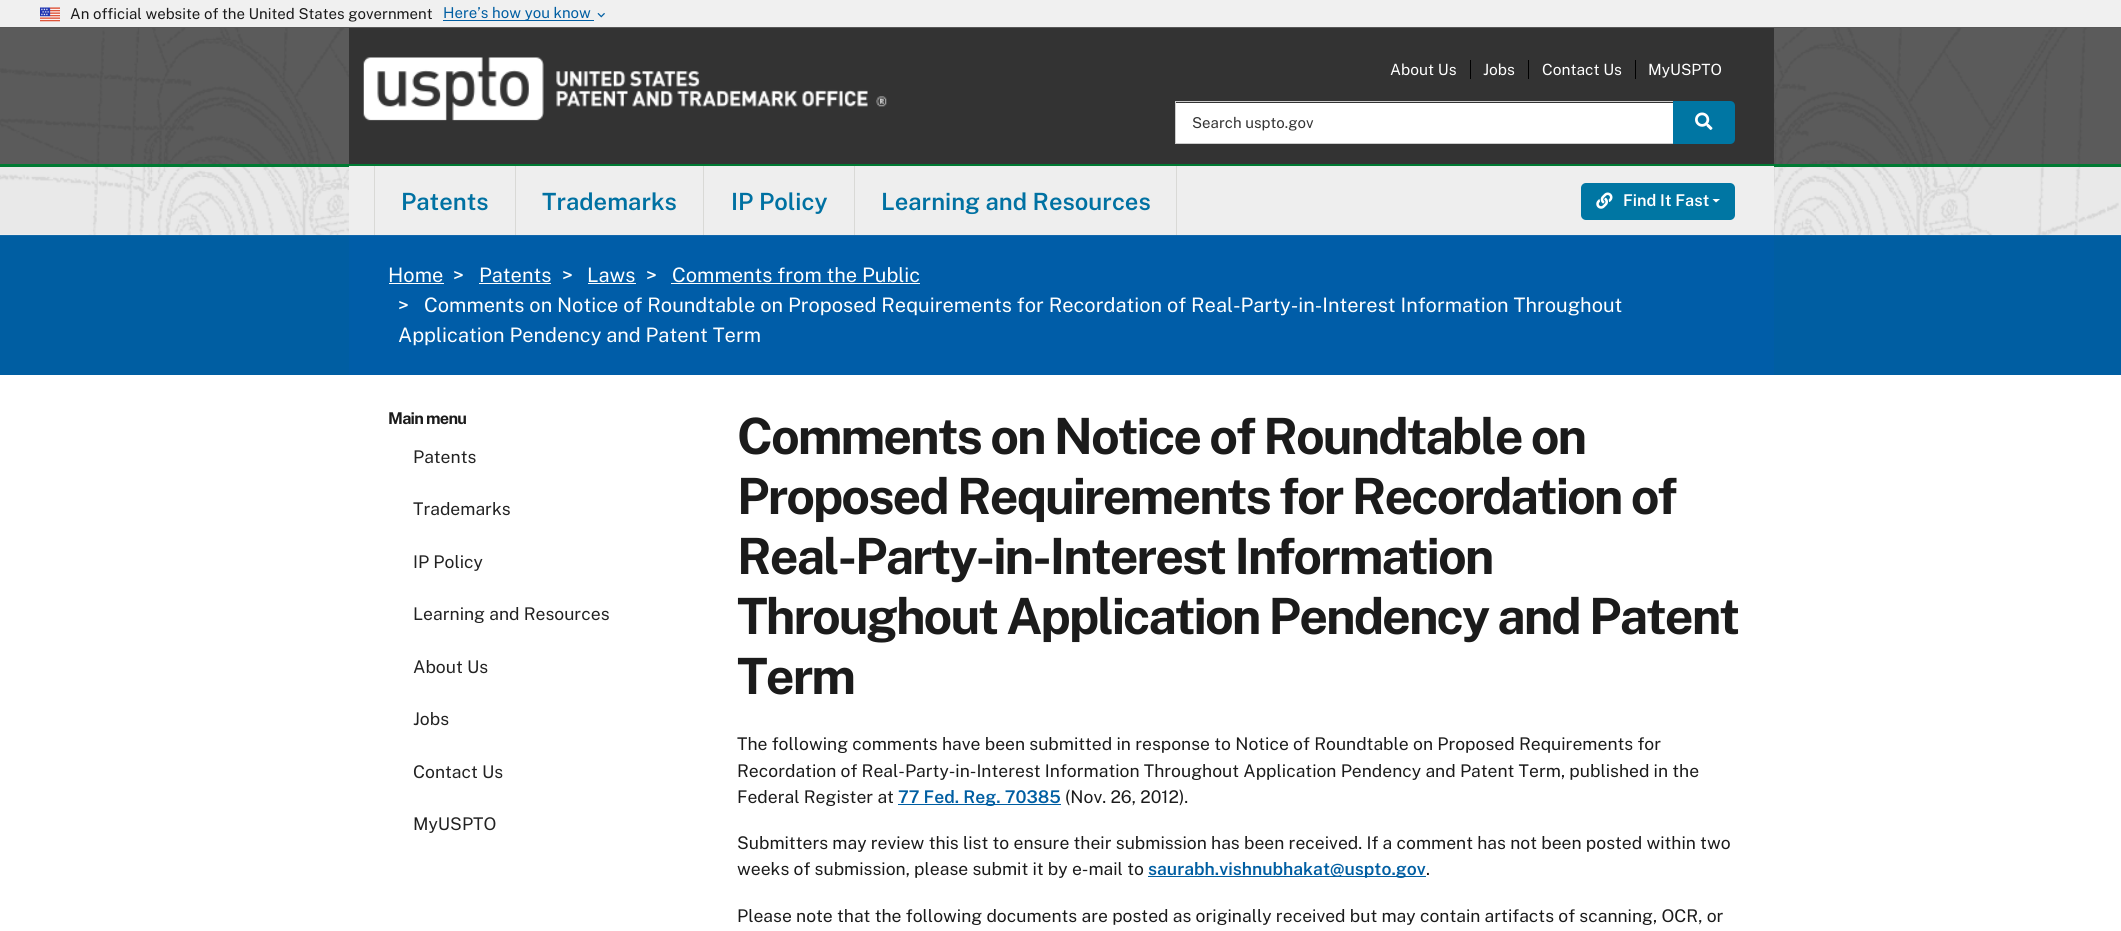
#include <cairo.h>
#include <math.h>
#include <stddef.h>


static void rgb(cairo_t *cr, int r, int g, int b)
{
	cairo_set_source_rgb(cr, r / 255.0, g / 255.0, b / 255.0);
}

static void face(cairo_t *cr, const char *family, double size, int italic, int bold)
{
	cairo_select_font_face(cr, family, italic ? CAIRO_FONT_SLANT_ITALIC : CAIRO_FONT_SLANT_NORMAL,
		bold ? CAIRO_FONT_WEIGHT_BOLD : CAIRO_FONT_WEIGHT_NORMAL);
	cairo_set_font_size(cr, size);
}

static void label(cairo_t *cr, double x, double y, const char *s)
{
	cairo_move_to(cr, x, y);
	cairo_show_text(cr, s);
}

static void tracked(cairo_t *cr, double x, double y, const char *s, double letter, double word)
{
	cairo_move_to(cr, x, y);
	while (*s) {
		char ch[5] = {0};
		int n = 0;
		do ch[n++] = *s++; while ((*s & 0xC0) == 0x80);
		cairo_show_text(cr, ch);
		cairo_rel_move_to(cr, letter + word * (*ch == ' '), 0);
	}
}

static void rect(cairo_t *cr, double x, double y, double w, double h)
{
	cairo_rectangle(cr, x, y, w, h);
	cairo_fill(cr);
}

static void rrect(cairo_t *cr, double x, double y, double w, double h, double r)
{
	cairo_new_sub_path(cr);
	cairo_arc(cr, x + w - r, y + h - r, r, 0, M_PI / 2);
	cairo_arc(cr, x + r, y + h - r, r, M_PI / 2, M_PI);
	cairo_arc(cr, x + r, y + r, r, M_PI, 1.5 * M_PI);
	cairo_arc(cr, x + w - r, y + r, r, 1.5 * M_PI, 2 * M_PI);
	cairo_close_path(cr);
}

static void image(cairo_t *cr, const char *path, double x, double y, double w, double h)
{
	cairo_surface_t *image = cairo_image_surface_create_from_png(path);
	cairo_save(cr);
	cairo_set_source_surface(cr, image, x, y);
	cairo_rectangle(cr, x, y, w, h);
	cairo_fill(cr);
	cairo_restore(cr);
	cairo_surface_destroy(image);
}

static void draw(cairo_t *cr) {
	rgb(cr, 255, 255, 255);
	cairo_paint(cr);
	image(cr, "image0.png", 0, 28, 2121, 207);
	rgb(cr, 240, 240, 240);
	rect(cr, 0, 0, 2121, 28);
	image(cr, "image1.png", 40, 7, 20, 15);
	face(cr, "Public Sans", 15, 0, 0);
	rgb(cr, 27, 27, 27);
	label(cr, 70, 19, "An official website of the United States government");
	rgb(cr, 0, 94, 162);
	rect(cr, 443, 20, 151, 1);
	label(cr, 443, 18, "Here’s how you know");
	image(cr, "image2.png", 597, 13, 8, 5);
	cairo_set_source_rgba(cr, 0.196, 0.196, 0.196, 0.8);
	rect(cr, 0, 27, 2121, 137);
	rgb(cr, 51, 51, 51);
	rect(cr, 349, 28, 1425, 136);
	image(cr, "image3.png", 363, 57, 524, 64);
	face(cr, "Public Sans", 15.5, 0, 0);
	rgb(cr, 255, 255, 255);
	label(cr, 1390, 75, "About Us");
	label(cr, 1483, 75, "Jobs");
	rgb(cr, 0, 0, 0);
	rect(cr, 1470, 60, 1, 19);
	rgb(cr, 255, 255, 255);
	label(cr, 1542, 75, "Contact Us");
	rgb(cr, 0, 0, 0);
	rect(cr, 1528, 60, 1, 19);
	rgb(cr, 255, 255, 255);
	label(cr, 1648, 75, "MyUSPTO");
	rgb(cr, 0, 0, 0);
	rect(cr, 1635, 60, 1, 19);
	rgb(cr, 255, 255, 255);
	rect(cr, 1176, 103, 497, 40);
	cairo_rectangle(cr, 1175.5, 101.5, 498, 42);
	rgb(cr, 204, 204, 204);
	cairo_set_line_width(cr, 1);
	cairo_stroke(cr);
	face(cr, "Public Sans", 15, 0, 0);
	rgb(cr, 51, 51, 51);
	label(cr, 1192, 128, "Search uspto.gov");
	rgb(cr, 0, 118, 163);
	cairo_new_path(cr);
	cairo_move_to(cr, 1673, 101);
	cairo_line_to(cr, 1730, 101);
	cairo_curve_to(cr, 1733, 101, 1735, 103, 1735, 106);
	cairo_line_to(cr, 1735, 139);
	cairo_curve_to(cr, 1735, 142, 1733, 144, 1730, 144);
	cairo_line_to(cr, 1673, 144);
	cairo_close_path(cr);
	cairo_fill(cr);
	image(cr, "image4.png", 1695, 112, 18, 18);
	rgb(cr, 0, 94, 162);
	rect(cr, 0, 235, 2121, 140);
	rgb(cr, 0, 93, 168);
	rect(cr, 349, 235, 1425, 140);
	image(cr, "image5.png", 0, 167, 2121, 69);
	rgb(cr, 0, 122, 51);
	rect(cr, 0, 164, 2121, 3);
	rgb(cr, 238, 238, 238);
	rect(cr, 349, 166, 1425, 69);
	rgb(cr, 217, 217, 214);
	rect(cr, 515, 166, 1, 69);
	rect(cr, 374, 166, 1, 69);
	face(cr, "Public Sans SemiBold", 23.75, 0, 0);
	rgb(cr, 0, 113, 162);
	label(cr, 401, 210, "Patents");
	rgb(cr, 217, 217, 214);
	rect(cr, 703, 166, 1, 69);
	rgb(cr, 0, 113, 162);
	label(cr, 542, 210, "Trademarks");
	rgb(cr, 217, 217, 214);
	rect(cr, 854, 166, 1, 69);
	rgb(cr, 0, 113, 162);
	label(cr, 731, 210, "IP Policy");
	rgb(cr, 217, 217, 214);
	rect(cr, 1176, 166, 1, 69);
	rgb(cr, 0, 113, 162);
	label(cr, 881, 210, "Learning and Resources");
	rgb(cr, 0, 118, 163);
	rrect(cr, 1581, 183, 154, 37, 5);
	cairo_fill(cr);
	image(cr, "image6.png", 1596, 192, 17, 17);
	face(cr, "Public Sans SemiBold", 16.25, 0, 0);
	rgb(cr, 255, 255, 255);
	label(cr, 1623, 206, "Find It Fast");
	cairo_new_path(cr);
	cairo_move_to(cr, 1712.5, 199);
	cairo_line_to(cr, 1720, 199);
	cairo_line_to(cr, 1716, 202.5);
	cairo_close_path(cr);
	cairo_fill(cr);
	face(cr, "Public Sans", 20, 0, 0);
	label(cr, 388, 282, "Home");
	rect(cr, 389, 283, 55, 1);
	label(cr, 453, 282, ">");
	label(cr, 479, 282, "Patents");
	rect(cr, 479, 283, 72, 1);
	label(cr, 562, 282, ">");
	label(cr, 587, 282, "Laws");
	rect(cr, 588, 283, 48, 1);
	label(cr, 646, 282, ">");
	label(cr, 672, 282, "Comments from the Public");
	rect(cr, 671, 283, 249, 1);
	label(cr, 398, 312, ">");
	label(cr, 424, 312, "Comments on Notice of Roundtable on Proposed Requirements for Recordation of Real-Party-in-Interest Information Throughout");
	label(cr, 398, 342, "Application Pendency and Patent Term");
	face(cr, "Public Sans", 16.25, 0, 1);
	rgb(cr, 27, 27, 27);
	tracked(cr, 388, 424, "Main menu", -0.75, 0);
	face(cr, "Public Sans", 17.5, 0, 0);
	rgb(cr, 34, 34, 34);
	label(cr, 413, 463, "Patents");
	label(cr, 413, 515, "Trademarks");
	label(cr, 413, 568, "IP Policy");
	label(cr, 413, 620, "Learning and Resources");
	label(cr, 413, 673, "About Us");
	label(cr, 413, 725, "Jobs");
	label(cr, 413, 778, "Contact Us");
	label(cr, 413, 830, "MyUSPTO");
	face(cr, "Public Sans", 50, 0, 1);
	rgb(cr, 27, 27, 27);
	tracked(cr, 737, 454, "Comments on Notice of Roundtable on", -2, 0);
	tracked(cr, 737, 514, "Proposed Requirements for Recordation of", -2, 0);
	tracked(cr, 737, 574, "Real-Party-in-Interest Information", -2, 0);
	tracked(cr, 737, 634, "Throughout Application Pendency and Patent", -2, 0);
	tracked(cr, 737, 694, "Term", -2, 0);
	face(cr, "Public Sans", 17.5, 0, 0);
	label(cr, 737, 750, "The following comments have been submitted in response to Notice of Roundtable on Proposed Requirements for");
	label(cr, 737, 777, "Recordation of Real-Party-in-Interest Information Throughout Application Pendency and Patent Term, published in the");
	label(cr, 737, 803, "Federal Register at");
	rgb(cr, 0, 94, 162);
	rect(cr, 898, 804, 163, 1);
	face(cr, "Public Sans SemiBold", 17.5, 0, 0);
	label(cr, 898, 803, "77 Fed. Reg. 70385");
	face(cr, "Public Sans", 17.5, 0, 0);
	rgb(cr, 27, 27, 27);
	label(cr, 1065, 803, "(Nov. 26, 2012).");
	label(cr, 737, 849, "Submitters may review this list to ensure their submission has been received. If a comment has not been posted within two");
	label(cr, 737, 875, "weeks of submission, please submit it by e-mail to");
	rgb(cr, 0, 94, 162);
	rect(cr, 1148, 876, 278, 1);
	face(cr, "Public Sans SemiBold", 17.5, 0, 0);
	label(cr, 1148, 875, "saurabh.vishnubhakat@uspto.gov");
	face(cr, "Public Sans", 17.5, 0, 0);
	rgb(cr, 27, 27, 27);
	label(cr, 1426, 875, ".");
	label(cr, 737, 922, "Please note that the following documents are posted as originally received but may contain artifacts of scanning, OCR, or");
}

int main(void) {
	cairo_surface_t *surface = cairo_image_surface_create(CAIRO_FORMAT_RGB24, 2121, 931);
	cairo_t *cr = cairo_create(surface);
	cairo_font_options_t *options = cairo_font_options_create();
	cairo_font_options_set_hint_metrics(options, CAIRO_HINT_METRICS_OFF);
	cairo_font_options_set_hint_style(options, CAIRO_HINT_STYLE_NONE);
	cairo_set_font_options(cr, options);
	cairo_set_miter_limit(cr, 4);
	draw(cr);
	cairo_surface_write_to_png(surface, "render.png");
	cairo_font_options_destroy(options);
	cairo_destroy(cr);
	cairo_surface_destroy(surface);
	return 0;
}
